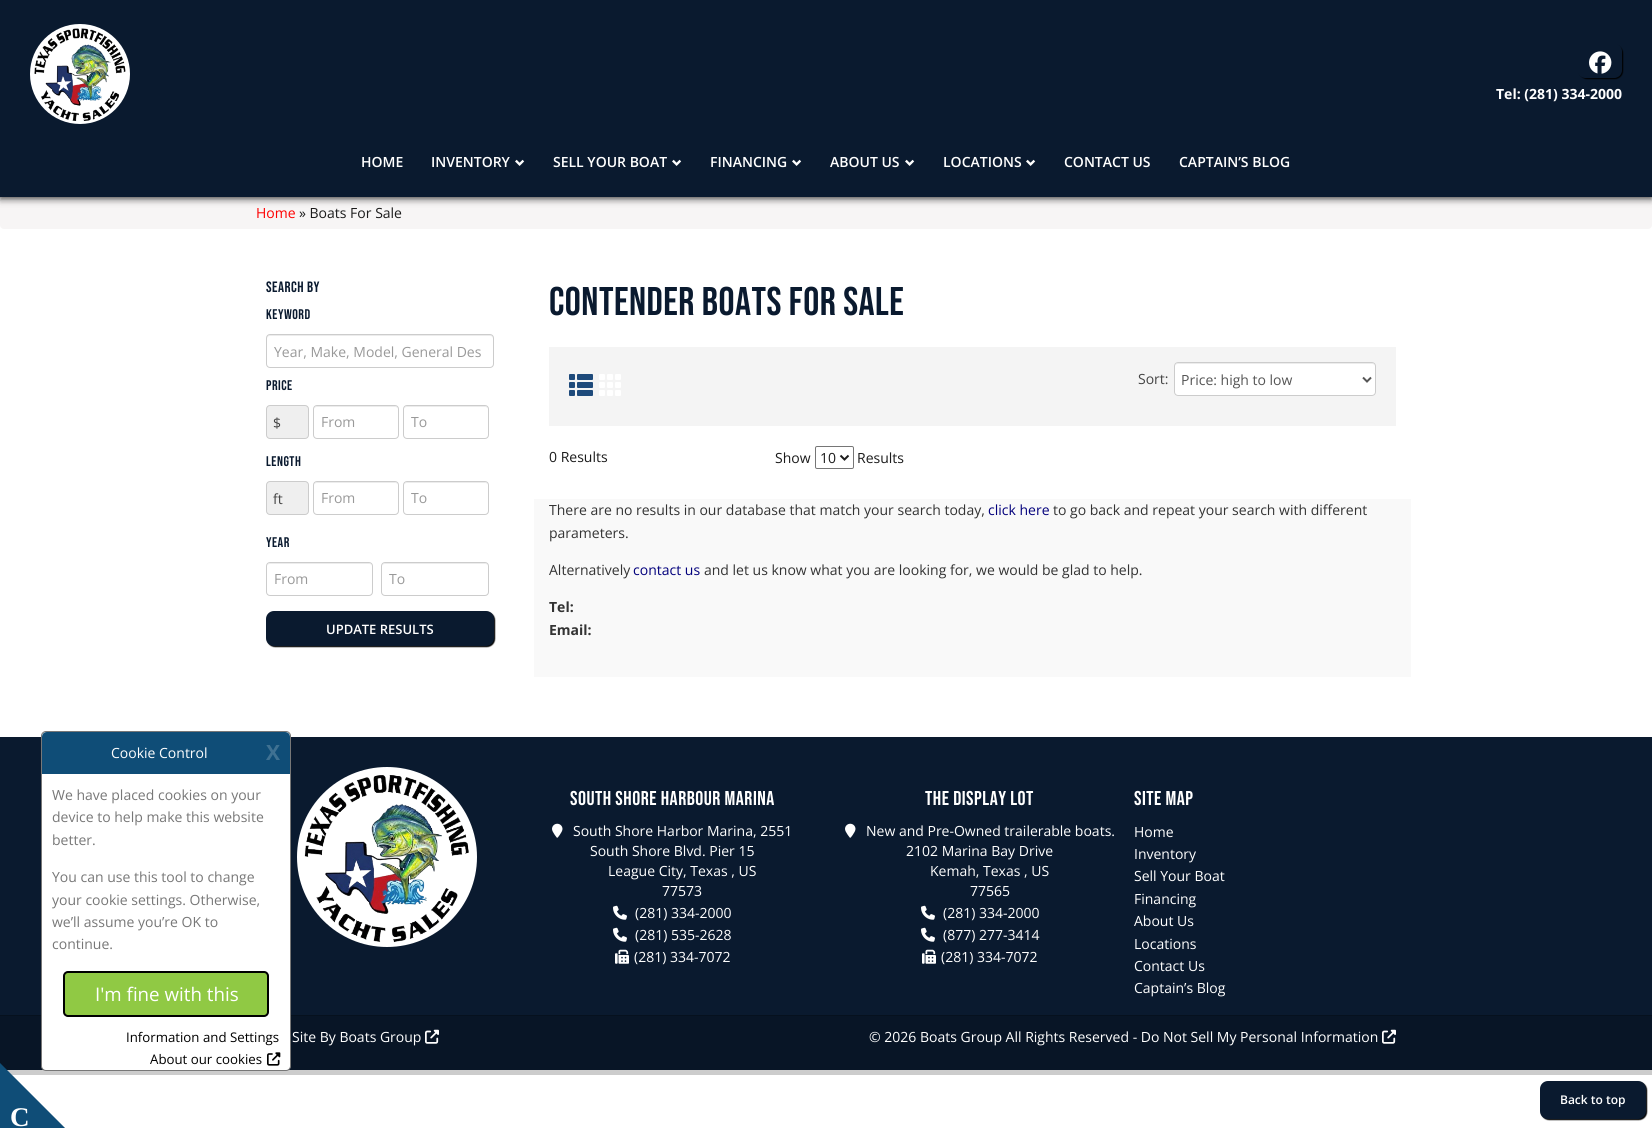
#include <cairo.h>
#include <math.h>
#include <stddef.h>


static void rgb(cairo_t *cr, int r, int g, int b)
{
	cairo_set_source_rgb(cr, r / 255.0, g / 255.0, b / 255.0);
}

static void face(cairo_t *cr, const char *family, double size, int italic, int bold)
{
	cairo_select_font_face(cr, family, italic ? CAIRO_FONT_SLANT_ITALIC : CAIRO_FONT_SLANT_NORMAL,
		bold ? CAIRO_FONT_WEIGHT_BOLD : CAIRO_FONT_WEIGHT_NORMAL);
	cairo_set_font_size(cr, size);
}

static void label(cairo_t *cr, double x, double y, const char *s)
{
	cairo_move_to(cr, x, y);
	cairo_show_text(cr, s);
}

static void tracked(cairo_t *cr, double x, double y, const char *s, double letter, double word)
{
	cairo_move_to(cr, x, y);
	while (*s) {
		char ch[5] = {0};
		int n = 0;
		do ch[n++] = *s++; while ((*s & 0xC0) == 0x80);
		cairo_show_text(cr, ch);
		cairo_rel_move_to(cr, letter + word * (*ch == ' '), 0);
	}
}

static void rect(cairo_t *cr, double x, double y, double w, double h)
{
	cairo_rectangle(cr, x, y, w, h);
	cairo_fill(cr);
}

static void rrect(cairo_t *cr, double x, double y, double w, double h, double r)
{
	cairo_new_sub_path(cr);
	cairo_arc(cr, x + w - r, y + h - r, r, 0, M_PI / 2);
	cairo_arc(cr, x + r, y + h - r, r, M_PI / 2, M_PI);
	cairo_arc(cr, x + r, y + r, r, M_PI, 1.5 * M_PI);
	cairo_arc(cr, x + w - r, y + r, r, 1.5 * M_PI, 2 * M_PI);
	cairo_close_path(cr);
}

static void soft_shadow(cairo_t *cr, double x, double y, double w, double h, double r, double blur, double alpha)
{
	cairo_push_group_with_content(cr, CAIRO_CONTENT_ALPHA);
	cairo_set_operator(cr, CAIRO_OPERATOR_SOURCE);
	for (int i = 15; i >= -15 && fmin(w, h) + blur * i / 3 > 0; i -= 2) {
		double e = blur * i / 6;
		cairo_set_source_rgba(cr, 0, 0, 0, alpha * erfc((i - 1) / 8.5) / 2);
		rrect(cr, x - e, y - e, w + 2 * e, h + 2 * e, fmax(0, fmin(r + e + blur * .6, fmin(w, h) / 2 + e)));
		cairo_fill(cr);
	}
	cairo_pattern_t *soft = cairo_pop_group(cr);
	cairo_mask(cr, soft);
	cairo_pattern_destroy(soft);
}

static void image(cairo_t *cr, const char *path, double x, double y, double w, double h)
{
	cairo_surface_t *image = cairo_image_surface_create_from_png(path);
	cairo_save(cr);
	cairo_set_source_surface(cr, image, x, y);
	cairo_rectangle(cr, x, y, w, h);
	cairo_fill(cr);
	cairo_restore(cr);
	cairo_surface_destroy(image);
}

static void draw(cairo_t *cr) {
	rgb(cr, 255, 255, 255);
	cairo_paint(cr);
	rgb(cr, 204, 204, 204);
	rect(cr, 7, 1070, 1645, 5);
	rgb(cr, 247, 245, 245);
	rrect(cr, 0, 197, 1652, 32, 4);
	cairo_fill(cr);
	rgb(cr, 33, 32, 32);
	soft_shadow(cr, 0, 1, 1652, 197, 0, 4, 1);
	rgb(cr, 10, 26, 47);
	rect(cr, 0, 0, 1652, 197);
	rgb(cr, 255, 255, 255);
	cairo_arc(cr, 80, 74, 50, 0, 2 * M_PI);
	cairo_fill(cr);
	image(cr, "image0.png", 34, 28, 92, 93);
	cairo_save(cr);
	cairo_set_fill_rule(cr, CAIRO_FILL_RULE_EVEN_ODD);
	cairo_new_path(cr);
	cairo_move_to(cr, 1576, 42);
	cairo_line_to(cr, 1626, 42);
	cairo_line_to(cr, 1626, 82);
	cairo_line_to(cr, 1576, 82);
	cairo_close_path(cr);
	cairo_move_to(cr, 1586, 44);
	cairo_line_to(cr, 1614, 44);
	cairo_curve_to(cr, 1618.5, 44, 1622, 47.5, 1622, 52);
	cairo_line_to(cr, 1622, 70);
	cairo_curve_to(cr, 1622, 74.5, 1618.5, 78, 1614, 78);
	cairo_line_to(cr, 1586, 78);
	cairo_curve_to(cr, 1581.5, 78, 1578, 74.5, 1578, 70);
	cairo_line_to(cr, 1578, 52);
	cairo_curve_to(cr, 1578, 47.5, 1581.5, 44, 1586, 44);
	cairo_close_path(cr);
	cairo_clip(cr);
	rgb(cr, 0, 0, 0);
	soft_shadow(cr, 1579, 45, 44, 34, 8, 0.5, 1);
	cairo_restore(cr);
	image(cr, "image1.png", 1589, 51, 23, 23);
	face(cr, "Open Sans", 14, 0, 1);
	label(cr, 1496, 99, "Tel: (281) 334-2000");
	face(cr, "Open Sans SemiBold", 14, 0, 0);
	label(cr, 361, 167, "HOME");
	label(cr, 431, 167, "INVENTORY");
	image(cr, "image2.png", 515, 159, 10, 7);
	label(cr, 553, 167, "SELL YOUR BOAT");
	image(cr, "image2.png", 672, 159, 10, 7);
	label(cr, 710, 167, "FINANCING");
	image(cr, "image2.png", 792, 159, 10, 7);
	label(cr, 830, 167, "ABOUT US");
	image(cr, "image2.png", 905, 159, 10, 7);
	label(cr, 943, 167, "LOCATIONS");
	image(cr, "image2.png", 1026, 159, 10, 7);
	label(cr, 1064, 167, "CONTACT US");
	label(cr, 1179, 167, "CAPTAIN’S BLOG");
	face(cr, "Open Sans", 14, 0, 0);
	rgb(cr, 254, 0, 0);
	label(cr, 256, 218, "Home");
	rgb(cr, 27, 27, 27);
	label(cr, 299, 218, "» Boats For Sale");
	rgb(cr, 10, 26, 47);
	rect(cr, 0, 737, 1652, 278);
	rgb(cr, 8, 21, 38);
	rect(cr, 0, 1016, 1652, 54);
	rgb(cr, 6, 17, 30);
	rect(cr, 0, 1015, 1652, 1);
	rgb(cr, 15, 77, 119);
	cairo_new_path(cr);
	cairo_move_to(cr, 0, 1128);
	cairo_line_to(cr, 0, 1063);
	cairo_line_to(cr, 65, 1128);
	cairo_close_path(cr);
	cairo_fill(cr);
	rgb(cr, 255, 255, 255);
	rrect(cr, 41.5, 731.5, 249, 339, 4.5);
	cairo_fill_preserve(cr);
	rgb(cr, 119, 119, 119);
	cairo_set_line_width(cr, 1);
	cairo_stroke(cr);
	cairo_save(cr);
	rrect(cr, 42, 732, 248, 338, 4);
	cairo_clip(cr);
	rgb(cr, 15, 77, 119);
	cairo_new_path(cr);
	cairo_move_to(cr, 47, 732);
	cairo_line_to(cr, 285, 732);
	cairo_curve_to(cr, 288, 732, 290, 734, 290, 737);
	cairo_line_to(cr, 290, 774);
	cairo_line_to(cr, 42, 774);
	cairo_line_to(cr, 42, 737);
	cairo_curve_to(cr, 42, 734, 44, 732, 47, 732);
	cairo_close_path(cr);
	cairo_fill(cr);
	cairo_restore(cr);
	rgb(cr, 255, 255, 255);
	label(cr, 111, 758, "Cookie Control");
	face(cr, "Open Sans", 21, 0, 1);
	rgb(cr, 63, 113, 146);
	label(cr, 266, 760, "X");
	face(cr, "Open Sans", 14, 0, 0);
	rgb(cr, 119, 119, 119);
	label(cr, 52, 800, "We have placed cookies on your");
	label(cr, 52, 822, "device to help make this website");
	label(cr, 52, 845, "better.");
	label(cr, 52, 882, "You can use this tool to change");
	label(cr, 52, 905, "your cookie settings. Otherwise,");
	label(cr, 52, 927, "we’ll assume you’re OK to");
	label(cr, 52, 949, "continue.");
	rgb(cr, 144, 201, 68);
	rrect(cr, 64, 972, 204, 44, 4);
	cairo_fill_preserve(cr);
	rgb(cr, 0, 0, 0);
	cairo_set_line_width(cr, 2);
	cairo_stroke(cr);
	face(cr, "Open Sans", 18.75, 0, 0);
	rgb(cr, 255, 255, 255);
	label(cr, 95, 1001, "I'm fine with this");
	face(cr, "Open Sans", 13.25, 0, 0);
	rgb(cr, 0, 0, 0);
	label(cr, 126, 1042, "Information and Settings");
	label(cr, 150, 1064, "About our cookies");
	image(cr, "image3.png", 267, 1052, 14, 14);
	face(cr, "Bebas Neue", 15, 0, 0);
	rgb(cr, 10, 26, 47);
	tracked(cr, 266, 292, "SEARCH BY", 0.5, 0);
	face(cr, "Bebas Neue", 14, 0, 0);
	tracked(cr, 266, 319, "Keyword", 0.5, 0);
	rgb(cr, 236, 236, 236);
	cairo_new_path(cr);
	cairo_move_to(cr, 270, 336);
	cairo_line_to(cr, 490, 336);
	cairo_curve_to(cr, 492, 336, 493, 337, 493, 339);
	cairo_line_to(cr, 493, 338);
	cairo_curve_to(cr, 493, 336, 492, 335, 490, 335);
	cairo_line_to(cr, 270, 335);
	cairo_curve_to(cr, 268, 335, 267, 336, 267, 338);
	cairo_line_to(cr, 267, 339);
	cairo_curve_to(cr, 267, 337, 268, 336, 270, 336);
	cairo_close_path(cr);
	cairo_fill(cr);
	rrect(cr, 266.5, 334.5, 227, 33, 3.5);
	rgb(cr, 204, 204, 204);
	cairo_set_line_width(cr, 1);
	cairo_stroke(cr);
	face(cr, "Open Sans", 14, 0, 0);
	rgb(cr, 153, 153, 153);
	label(cr, 274, 357, "Year, Make, Model, General Des");
	face(cr, "Bebas Neue", 14, 0, 0);
	rgb(cr, 10, 26, 47);
	tracked(cr, 266, 390, "Price", 0.5, 0);
	rgb(cr, 239, 239, 239);
	rrect(cr, 266.5, 405.5, 42, 33, 3.5);
	cairo_fill_preserve(cr);
	rgb(cr, 204, 204, 204);
	cairo_stroke(cr);
	face(cr, "Open Sans", 14, 0, 0);
	rgb(cr, 68, 68, 68);
	label(cr, 273, 428, "$");
	rgb(cr, 236, 236, 236);
	cairo_new_path(cr);
	cairo_move_to(cr, 317, 407);
	cairo_line_to(cr, 395, 407);
	cairo_curve_to(cr, 397, 407, 398, 408, 398, 410);
	cairo_curve_to(cr, 398, 403, 386, 406, 382, 406);
	cairo_line_to(cr, 330, 406);
	cairo_curve_to(cr, 326, 406, 314, 403, 314, 410);
	cairo_curve_to(cr, 314, 408, 315, 407, 317, 407);
	cairo_close_path(cr);
	cairo_fill(cr);
	rrect(cr, 313.5, 405.5, 85, 33, 3.5);
	rgb(cr, 204, 204, 204);
	cairo_stroke(cr);
	rgb(cr, 153, 153, 153);
	label(cr, 321, 427, "From");
	rgb(cr, 236, 236, 236);
	cairo_new_path(cr);
	cairo_move_to(cr, 407, 407);
	cairo_line_to(cr, 485, 407);
	cairo_curve_to(cr, 487, 407, 488, 408, 488, 410);
	cairo_curve_to(cr, 488, 403, 476, 406, 472, 406);
	cairo_line_to(cr, 420, 406);
	cairo_curve_to(cr, 416, 406, 404, 403, 404, 410);
	cairo_curve_to(cr, 404, 408, 405, 407, 407, 407);
	cairo_close_path(cr);
	cairo_fill(cr);
	rrect(cr, 403.5, 405.5, 85, 33, 3.5);
	rgb(cr, 204, 204, 204);
	cairo_stroke(cr);
	rgb(cr, 153, 153, 153);
	label(cr, 411, 427, "To");
	face(cr, "Bebas Neue", 14, 0, 0);
	rgb(cr, 10, 26, 47);
	tracked(cr, 266, 466, "Length", 0.5, 0);
	rgb(cr, 239, 239, 239);
	rrect(cr, 266.5, 481.5, 42, 33, 3.5);
	cairo_fill_preserve(cr);
	rgb(cr, 204, 204, 204);
	cairo_stroke(cr);
	face(cr, "Open Sans", 14, 0, 0);
	rgb(cr, 68, 68, 68);
	label(cr, 273, 504, "ft");
	rgb(cr, 236, 236, 236);
	cairo_new_path(cr);
	cairo_move_to(cr, 317, 483);
	cairo_line_to(cr, 395, 483);
	cairo_curve_to(cr, 397, 483, 398, 484, 398, 486);
	cairo_curve_to(cr, 398, 479, 386, 482, 382, 482);
	cairo_line_to(cr, 330, 482);
	cairo_curve_to(cr, 326, 482, 314, 479, 314, 486);
	cairo_curve_to(cr, 314, 484, 315, 483, 317, 483);
	cairo_close_path(cr);
	cairo_fill(cr);
	rrect(cr, 313.5, 481.5, 85, 33, 3.5);
	rgb(cr, 204, 204, 204);
	cairo_stroke(cr);
	rgb(cr, 153, 153, 153);
	label(cr, 321, 503, "From");
	rgb(cr, 236, 236, 236);
	cairo_new_path(cr);
	cairo_move_to(cr, 407, 483);
	cairo_line_to(cr, 485, 483);
	cairo_curve_to(cr, 487, 483, 488, 484, 488, 486);
	cairo_curve_to(cr, 488, 479, 476, 482, 472, 482);
	cairo_line_to(cr, 420, 482);
	cairo_curve_to(cr, 416, 482, 404, 479, 404, 486);
	cairo_curve_to(cr, 404, 484, 405, 483, 407, 483);
	cairo_close_path(cr);
	cairo_fill(cr);
	rrect(cr, 403.5, 481.5, 85, 33, 3.5);
	rgb(cr, 204, 204, 204);
	cairo_stroke(cr);
	rgb(cr, 153, 153, 153);
	label(cr, 411, 503, "To");
	face(cr, "Bebas Neue", 14, 0, 0);
	rgb(cr, 10, 26, 47);
	tracked(cr, 266, 547, "Year", 0.5, 0);
	rgb(cr, 236, 236, 236);
	cairo_new_path(cr);
	cairo_move_to(cr, 270, 564);
	cairo_line_to(cr, 369, 564);
	cairo_curve_to(cr, 371, 564, 372, 565, 372, 567);
	cairo_curve_to(cr, 372, 559, 355, 563, 352, 563);
	cairo_line_to(cr, 286, 563);
	cairo_curve_to(cr, 284, 563, 267, 559, 267, 567);
	cairo_curve_to(cr, 267, 565, 268, 564, 270, 564);
	cairo_close_path(cr);
	cairo_fill(cr);
	rrect(cr, 266.5, 562.5, 106, 33, 3.5);
	rgb(cr, 204, 204, 204);
	cairo_stroke(cr);
	face(cr, "Open Sans", 14, 0, 0);
	rgb(cr, 153, 153, 153);
	label(cr, 274, 584, "From");
	rgb(cr, 236, 236, 236);
	cairo_new_path(cr);
	cairo_move_to(cr, 385, 564);
	cairo_line_to(cr, 485, 564);
	cairo_curve_to(cr, 487, 564, 488, 565, 488, 567);
	cairo_curve_to(cr, 488, 559, 471, 563, 468, 563);
	cairo_line_to(cr, 402, 563);
	cairo_curve_to(cr, 399, 563, 382, 559, 382, 567);
	cairo_curve_to(cr, 382, 565, 383, 564, 385, 564);
	cairo_close_path(cr);
	cairo_fill(cr);
	rrect(cr, 381.5, 562.5, 107, 33, 3.5);
	rgb(cr, 204, 204, 204);
	cairo_stroke(cr);
	rgb(cr, 153, 153, 153);
	label(cr, 389, 584, "To");
	rgb(cr, 0, 0, 0);
	soft_shadow(cr, 267, 612, 228, 35, 8, 0.5, 1);
	rgb(cr, 10, 26, 47);
	rrect(cr, 266, 611, 228, 35, 8);
	cairo_fill(cr);
	face(cr, "Open Sans SemiBold", 13, 0, 0);
	rgb(cr, 255, 255, 255);
	label(cr, 326, 634, "UPDATE RESULTS");
	face(cr, "Bebas Neue", 40, 0, 0);
	rgb(cr, 10, 26, 47);
	tracked(cr, 549, 315, "Contender Boats For Sale", 0.5, 0);
	rgb(cr, 244, 244, 244);
	rect(cr, 549, 347, 847, 79);
	image(cr, "image4.png", 569, 374, 24, 22);
	image(cr, "image5.png", 599, 374, 22, 22);
	face(cr, "Open Sans", 14, 0, 0);
	rgb(cr, 68, 68, 68);
	label(cr, 1138, 384, "Sort:");
	rgb(cr, 255, 255, 255);
	rrect(cr, 1174, 362, 202, 34, 4);
	cairo_fill(cr);
	rgb(cr, 236, 236, 236);
	cairo_new_path(cr);
	cairo_move_to(cr, 1178, 364);
	cairo_line_to(cr, 1372, 364);
	cairo_curve_to(cr, 1374, 364, 1375, 365, 1375, 367);
	cairo_curve_to(cr, 1375, 365, 1374, 363, 1372, 363);
	cairo_line_to(cr, 1178, 363);
	cairo_curve_to(cr, 1176, 363, 1175, 365, 1175, 367);
	cairo_curve_to(cr, 1175, 365, 1176, 364, 1178, 364);
	cairo_close_path(cr);
	cairo_fill(cr);
	rrect(cr, 1174.5, 362.5, 201, 33, 3.5);
	rgb(cr, 204, 204, 204);
	cairo_stroke(cr);
	cairo_new_path(cr);
	cairo_move_to(cr, 1363, 377.5);
	cairo_line_to(cr, 1367, 381.5);
	cairo_line_to(cr, 1371, 377.5);
	rgb(cr, 85, 85, 85);
	cairo_set_line_width(cr, 2);
	cairo_stroke(cr);
	label(cr, 1181, 385, "Price: high to low");
	rgb(cr, 27, 27, 27);
	label(cr, 549, 462, "0 Results");
	label(cr, 775, 463, "Show");
	rrect(cr, 815.5, 446.5, 38, 22, 1.5);
	rgb(cr, 118, 118, 118);
	cairo_set_line_width(cr, 1);
	cairo_stroke(cr);
	cairo_new_path(cr);
	cairo_move_to(cr, 840.5, 455.5);
	cairo_line_to(cr, 844.5, 459.5);
	cairo_line_to(cr, 848.5, 455.5);
	rgb(cr, 27, 27, 27);
	cairo_set_line_width(cr, 2);
	cairo_stroke(cr);
	label(cr, 820, 463, "10");
	label(cr, 857, 463, "Results");
	rgb(cr, 249, 249, 249);
	rect(cr, 534, 499, 877, 178);
	rgb(cr, 51, 51, 51);
	label(cr, 549, 515, "There are no results in our database that match your search today,");
	rgb(cr, 2, 0, 124);
	label(cr, 988, 515, "click here");
	rgb(cr, 51, 51, 51);
	label(cr, 1053, 515, "to go back and repeat your search with different");
	label(cr, 549, 538, "parameters.");
	label(cr, 549, 575, "Alternatively");
	rgb(cr, 2, 0, 124);
	label(cr, 633, 575, "contact us");
	rgb(cr, 51, 51, 51);
	label(cr, 704, 575, "and let us know what you are looking for, we would be glad to help.");
	face(cr, "Open Sans", 14, 0, 1);
	label(cr, 549, 612, "Tel:");
	label(cr, 549, 635, "Email:");
	rgb(cr, 0, 0, 0);
	soft_shadow(cr, 1541, 1082, 106, 38, 8, 0.5, 1);
	rgb(cr, 10, 26, 47);
	rrect(cr, 1540, 1081, 106, 38, 8);
	cairo_fill(cr);
	face(cr, "Open Sans SemiBold", 12, 0, 0);
	rgb(cr, 255, 255, 255);
	label(cr, 1560, 1104, "Back to top");
	cairo_new_path(cr);
	cairo_arc(cr, 387, 857, 90, 0, 2 * M_PI);
	cairo_fill(cr);
	image(cr, "image6.png", 304, 775, 165, 168);
	face(cr, "Bebas Neue", 20, 0, 0);
	tracked(cr, 570, 805, "South Shore Harbour Marina", 0.5, 0);
	image(cr, "image7.png", 552, 823, 11, 15);
	face(cr, "Open Sans", 14, 0, 0);
	label(cr, 573, 836, "South Shore Harbor Marina, 2551");
	label(cr, 590, 856, "South Shore Blvd. Pier 15");
	label(cr, 608, 876, "League City, Texas , US");
	label(cr, 662, 896, "77573");
	image(cr, "image8.png", 613, 905, 14, 15);
	label(cr, 635, 918, "(281) 334-2000");
	image(cr, "image8.png", 613, 927, 14, 15);
	label(cr, 635, 940, "(281) 535-2628");
	image(cr, "image9.png", 615, 949, 14, 15);
	label(cr, 634, 962, "(281) 334-7072");
	face(cr, "Bebas Neue", 20, 0, 0);
	tracked(cr, 925, 805, "The Display Lot", 0.5, 0);
	image(cr, "image7.png", 845, 823, 11, 15);
	face(cr, "Open Sans", 14, 0, 0);
	label(cr, 866, 836, "New and Pre-Owned trailerable boats.");
	label(cr, 906, 856, "2102 Marina Bay Drive");
	label(cr, 930, 876, "Kemah, Texas , US");
	label(cr, 970, 896, "77565");
	image(cr, "image8.png", 921, 905, 14, 15);
	label(cr, 943, 918, "(281) 334-2000");
	image(cr, "image8.png", 921, 927, 14, 15);
	label(cr, 943, 940, "(877) 277-3414");
	image(cr, "image9.png", 922, 949, 14, 15);
	label(cr, 941, 962, "(281) 334-7072");
	face(cr, "Bebas Neue", 20, 0, 0);
	tracked(cr, 1134, 805, "Site Map", 0.5, 0);
	face(cr, "Open Sans", 14, 0, 0);
	label(cr, 1134, 837, "Home");
	label(cr, 1134, 859, "Inventory");
	label(cr, 1134, 881, "Sell Your Boat");
	label(cr, 1134, 904, "Financing");
	label(cr, 1134, 926, "About Us");
	label(cr, 1134, 949, "Locations");
	label(cr, 1134, 971, "Contact Us");
	label(cr, 1134, 993, "Captain’s Blog");
	label(cr, 292, 1042, "Site By Boats Group");
	image(cr, "image10.png", 425, 1029, 14, 15);
	label(cr, 869, 1042, "© 2026 Boats Group All Rights Reserved - Do Not Sell My Personal Information");
	image(cr, "image10.png", 1382, 1029, 14, 15);
	face(cr, "Liberation Serif", 27, 0, 1);
	label(cr, 10, 1126, "C");
}

int main(void) {
	cairo_surface_t *surface = cairo_image_surface_create(CAIRO_FORMAT_RGB24, 1652, 1128);
	cairo_t *cr = cairo_create(surface);
	cairo_font_options_t *options = cairo_font_options_create();
	cairo_font_options_set_hint_metrics(options, CAIRO_HINT_METRICS_OFF);
	cairo_font_options_set_hint_style(options, CAIRO_HINT_STYLE_NONE);
	cairo_set_font_options(cr, options);
	cairo_set_miter_limit(cr, 4);
	draw(cr);
	cairo_surface_write_to_png(surface, "render.png");
	cairo_font_options_destroy(options);
	cairo_destroy(cr);
	cairo_surface_destroy(surface);
	return 0;
}
